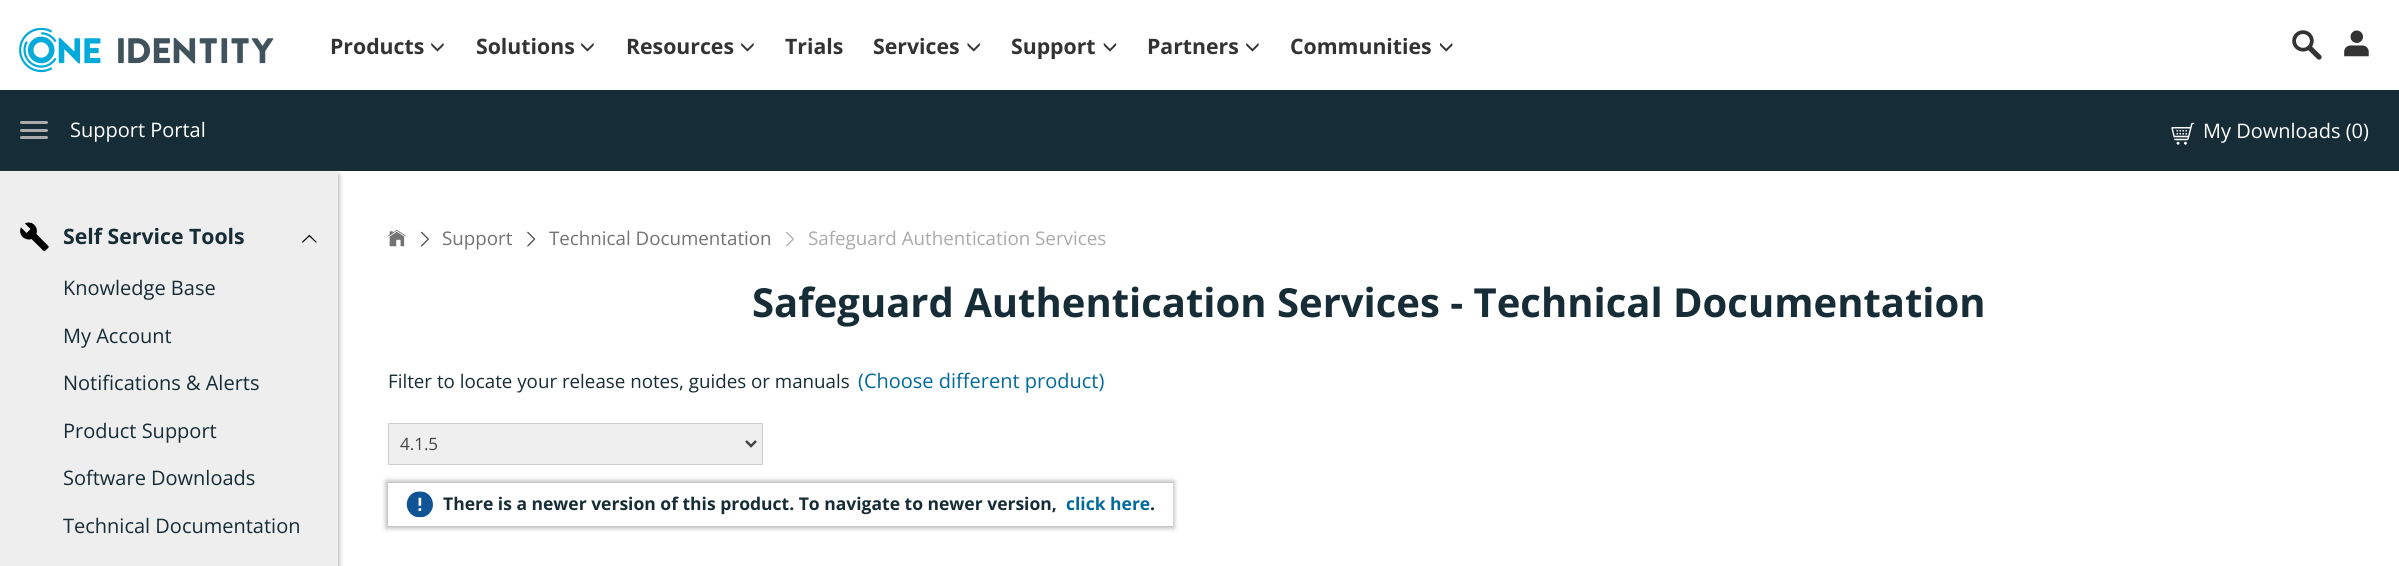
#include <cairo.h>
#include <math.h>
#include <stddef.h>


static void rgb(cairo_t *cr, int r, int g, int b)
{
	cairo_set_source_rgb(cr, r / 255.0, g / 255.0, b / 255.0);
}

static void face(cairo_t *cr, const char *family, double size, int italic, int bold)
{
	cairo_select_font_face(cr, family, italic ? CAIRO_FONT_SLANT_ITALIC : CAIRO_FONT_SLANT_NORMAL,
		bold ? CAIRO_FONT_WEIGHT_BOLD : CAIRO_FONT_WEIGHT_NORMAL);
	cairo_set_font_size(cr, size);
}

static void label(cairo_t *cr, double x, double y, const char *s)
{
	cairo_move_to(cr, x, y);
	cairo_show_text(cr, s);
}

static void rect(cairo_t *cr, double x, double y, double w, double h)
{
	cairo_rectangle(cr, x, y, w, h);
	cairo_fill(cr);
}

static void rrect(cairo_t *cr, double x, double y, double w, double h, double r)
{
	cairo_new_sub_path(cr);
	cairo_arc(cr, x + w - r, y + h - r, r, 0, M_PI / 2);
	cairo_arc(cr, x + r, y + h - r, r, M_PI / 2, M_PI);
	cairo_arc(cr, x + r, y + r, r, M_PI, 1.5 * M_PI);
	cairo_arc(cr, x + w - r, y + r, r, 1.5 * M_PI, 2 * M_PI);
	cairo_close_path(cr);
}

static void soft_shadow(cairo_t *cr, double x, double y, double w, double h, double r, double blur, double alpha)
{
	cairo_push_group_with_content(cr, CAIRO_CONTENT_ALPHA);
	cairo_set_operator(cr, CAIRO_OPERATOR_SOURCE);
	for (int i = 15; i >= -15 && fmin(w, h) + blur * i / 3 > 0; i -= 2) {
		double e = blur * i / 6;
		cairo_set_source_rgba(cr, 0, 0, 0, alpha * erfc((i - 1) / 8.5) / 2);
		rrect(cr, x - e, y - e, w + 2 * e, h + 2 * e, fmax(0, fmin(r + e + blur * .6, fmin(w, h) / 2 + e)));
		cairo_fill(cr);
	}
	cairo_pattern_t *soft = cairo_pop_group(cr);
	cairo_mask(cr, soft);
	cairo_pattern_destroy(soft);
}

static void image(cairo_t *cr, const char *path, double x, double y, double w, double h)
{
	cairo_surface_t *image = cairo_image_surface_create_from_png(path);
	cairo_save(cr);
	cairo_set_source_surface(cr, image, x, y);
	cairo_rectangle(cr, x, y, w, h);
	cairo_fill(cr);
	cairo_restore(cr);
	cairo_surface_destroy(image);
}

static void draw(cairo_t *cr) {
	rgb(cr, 255, 255, 255);
	cairo_paint(cr);
	image(cr, "image0.png", 19, 28, 255, 45);
	face(cr, "Open Sans", 21.25, 0, 1);
	rgb(cr, 51, 51, 51);
	label(cr, 330, 54, "Products");
	image(cr, "image1.png", 431, 43, 13, 9);
	label(cr, 476, 54, "Solutions");
	image(cr, "image1.png", 581, 43, 13, 9);
	label(cr, 626, 54, "Resources");
	image(cr, "image1.png", 741, 43, 13, 9);
	label(cr, 785, 54, "Trials");
	label(cr, 873, 54, "Services");
	image(cr, "image2.png", 967, 43, 13, 9);
	label(cr, 1011, 54, "Support");
	image(cr, "image3.png", 1103, 43, 14, 9);
	label(cr, 1147, 54, "Partners");
	image(cr, "image1.png", 1246, 43, 13, 9);
	label(cr, 1290, 54, "Communities");
	image(cr, "image4.png", 1440, 43, 13, 9);
	image(cr, "image5.png", 2292, 30, 30, 30);
	image(cr, "image6.png", 2344, 30, 25, 27);
	rgb(cr, 22, 44, 54);
	rect(cr, 0, 90, 2399, 81);
	rgb(cr, 170, 170, 170);
	rrect(cr, 20, 121, 28, 3, 1.5);
	cairo_fill(cr);
	face(cr, "Open Sans", 20, 0, 0);
	rgb(cr, 255, 255, 255);
	label(cr, 70, 137, "Support Portal");
	rgb(cr, 170, 170, 170);
	rrect(cr, 20, 129, 28, 3, 1.5);
	cairo_fill(cr);
	rrect(cr, 20, 136, 28, 3, 1.5);
	cairo_fill(cr);
	image(cr, "image7.png", 2171, 122, 24, 23);
	rgb(cr, 255, 255, 255);
	label(cr, 2203, 138, "My Downloads (0)");
	rgb(cr, 170, 170, 170);
	soft_shadow(cr, -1, 175, 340, 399, 0, 2.5, 1);
	rgb(cr, 238, 238, 238);
	rect(cr, 0, 171, 338, 395);
	image(cr, "image8.png", 20, 222, 29, 30);
	face(cr, "Open Sans", 21.25, 0, 1);
	rgb(cr, 22, 44, 54);
	label(cr, 63, 244, "Self Service Tools");
	image(cr, "image9.png", 302, 234, 15, 9);
	face(cr, "Open Sans", 20, 0, 0);
	label(cr, 63, 295, "Knowledge Base");
	label(cr, 63, 343, "My Account");
	label(cr, 63, 390, "Notifications & Alerts");
	label(cr, 63, 438, "Product Support");
	label(cr, 63, 485, "Software Downloads");
	label(cr, 63, 533, "Technical Documentation");
	image(cr, "image10.png", 388, 229, 18, 18);
	image(cr, "image11.png", 421, 231, 8, 16);
	face(cr, "Open Sans", 18.75, 0, 0);
	rgb(cr, 115, 115, 115);
	label(cr, 442, 245, "Support");
	image(cr, "image12.png", 527, 231, 9, 16);
	label(cr, 549, 245, "Technical Documentation");
	image(cr, "image13.png", 786, 231, 8, 16);
	rgb(cr, 170, 170, 170);
	label(cr, 808, 245, "Safeguard Authentication Services");
	face(cr, "Open Sans", 40, 0, 1);
	rgb(cr, 22, 44, 54);
	label(cr, 752, 317, "Safeguard Authentication Services - Technical Documentation");
	face(cr, "Open Sans", 18.75, 0, 0);
	label(cr, 388, 388, "Filter to locate your release notes, guides or manuals");
	face(cr, "Open Sans", 20, 0, 0);
	rgb(cr, 1, 106, 156);
	label(cr, 858, 388, "(Choose different product)");
	rgb(cr, 239, 239, 239);
	rrect(cr, 388.5, 423.5, 374, 41, 0.5);
	cairo_fill_preserve(cr);
	rgb(cr, 204, 204, 204);
	cairo_set_line_width(cr, 1);
	cairo_stroke(cr);
	cairo_new_path(cr);
	cairo_move_to(cr, 746, 441);
	cairo_line_to(cr, 751, 446);
	cairo_line_to(cr, 756, 441);
	rgb(cr, 68, 68, 68);
	cairo_set_line_width(cr, 2.5);
	cairo_stroke(cr);
	face(cr, "Open Sans", 17, 0, 0);
	label(cr, 400, 450, "4.1.5");
	cairo_save(cr);
	cairo_set_fill_rule(cr, CAIRO_FILL_RULE_EVEN_ODD);
	cairo_new_path(cr);
	cairo_move_to(cr, 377, 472);
	cairo_line_to(cr, 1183, 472);
	cairo_line_to(cr, 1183, 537);
	cairo_line_to(cr, 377, 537);
	cairo_close_path(cr);
	cairo_move_to(cr, 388, 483);
	cairo_line_to(cr, 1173, 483);
	cairo_line_to(cr, 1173, 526);
	cairo_line_to(cr, 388, 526);
	cairo_close_path(cr);
	cairo_clip(cr);
	rgb(cr, 0, 0, 0);
	soft_shadow(cr, 386, 481, 788, 47, 0, 2.5, 0.3);
	cairo_restore(cr);
	image(cr, "image14.png", 406, 491, 27, 27);
	face(cr, "Open Sans", 17.5, 0, 1);
	rgb(cr, 22, 44, 54);
	label(cr, 443, 510, "There is a newer version of this product. To navigate to newer version,");
	rgb(cr, 1, 106, 156);
	label(cr, 1066, 510, "click here");
	rgb(cr, 22, 44, 54);
	label(cr, 1150, 510, ".");
}

int main(void) {
	cairo_surface_t *surface = cairo_image_surface_create(CAIRO_FORMAT_RGB24, 2399, 566);
	cairo_t *cr = cairo_create(surface);
	cairo_font_options_t *options = cairo_font_options_create();
	cairo_font_options_set_hint_metrics(options, CAIRO_HINT_METRICS_OFF);
	cairo_font_options_set_hint_style(options, CAIRO_HINT_STYLE_NONE);
	cairo_set_font_options(cr, options);
	cairo_set_miter_limit(cr, 4);
	draw(cr);
	cairo_surface_write_to_png(surface, "render.png");
	cairo_font_options_destroy(options);
	cairo_destroy(cr);
	cairo_surface_destroy(surface);
	return 0;
}
